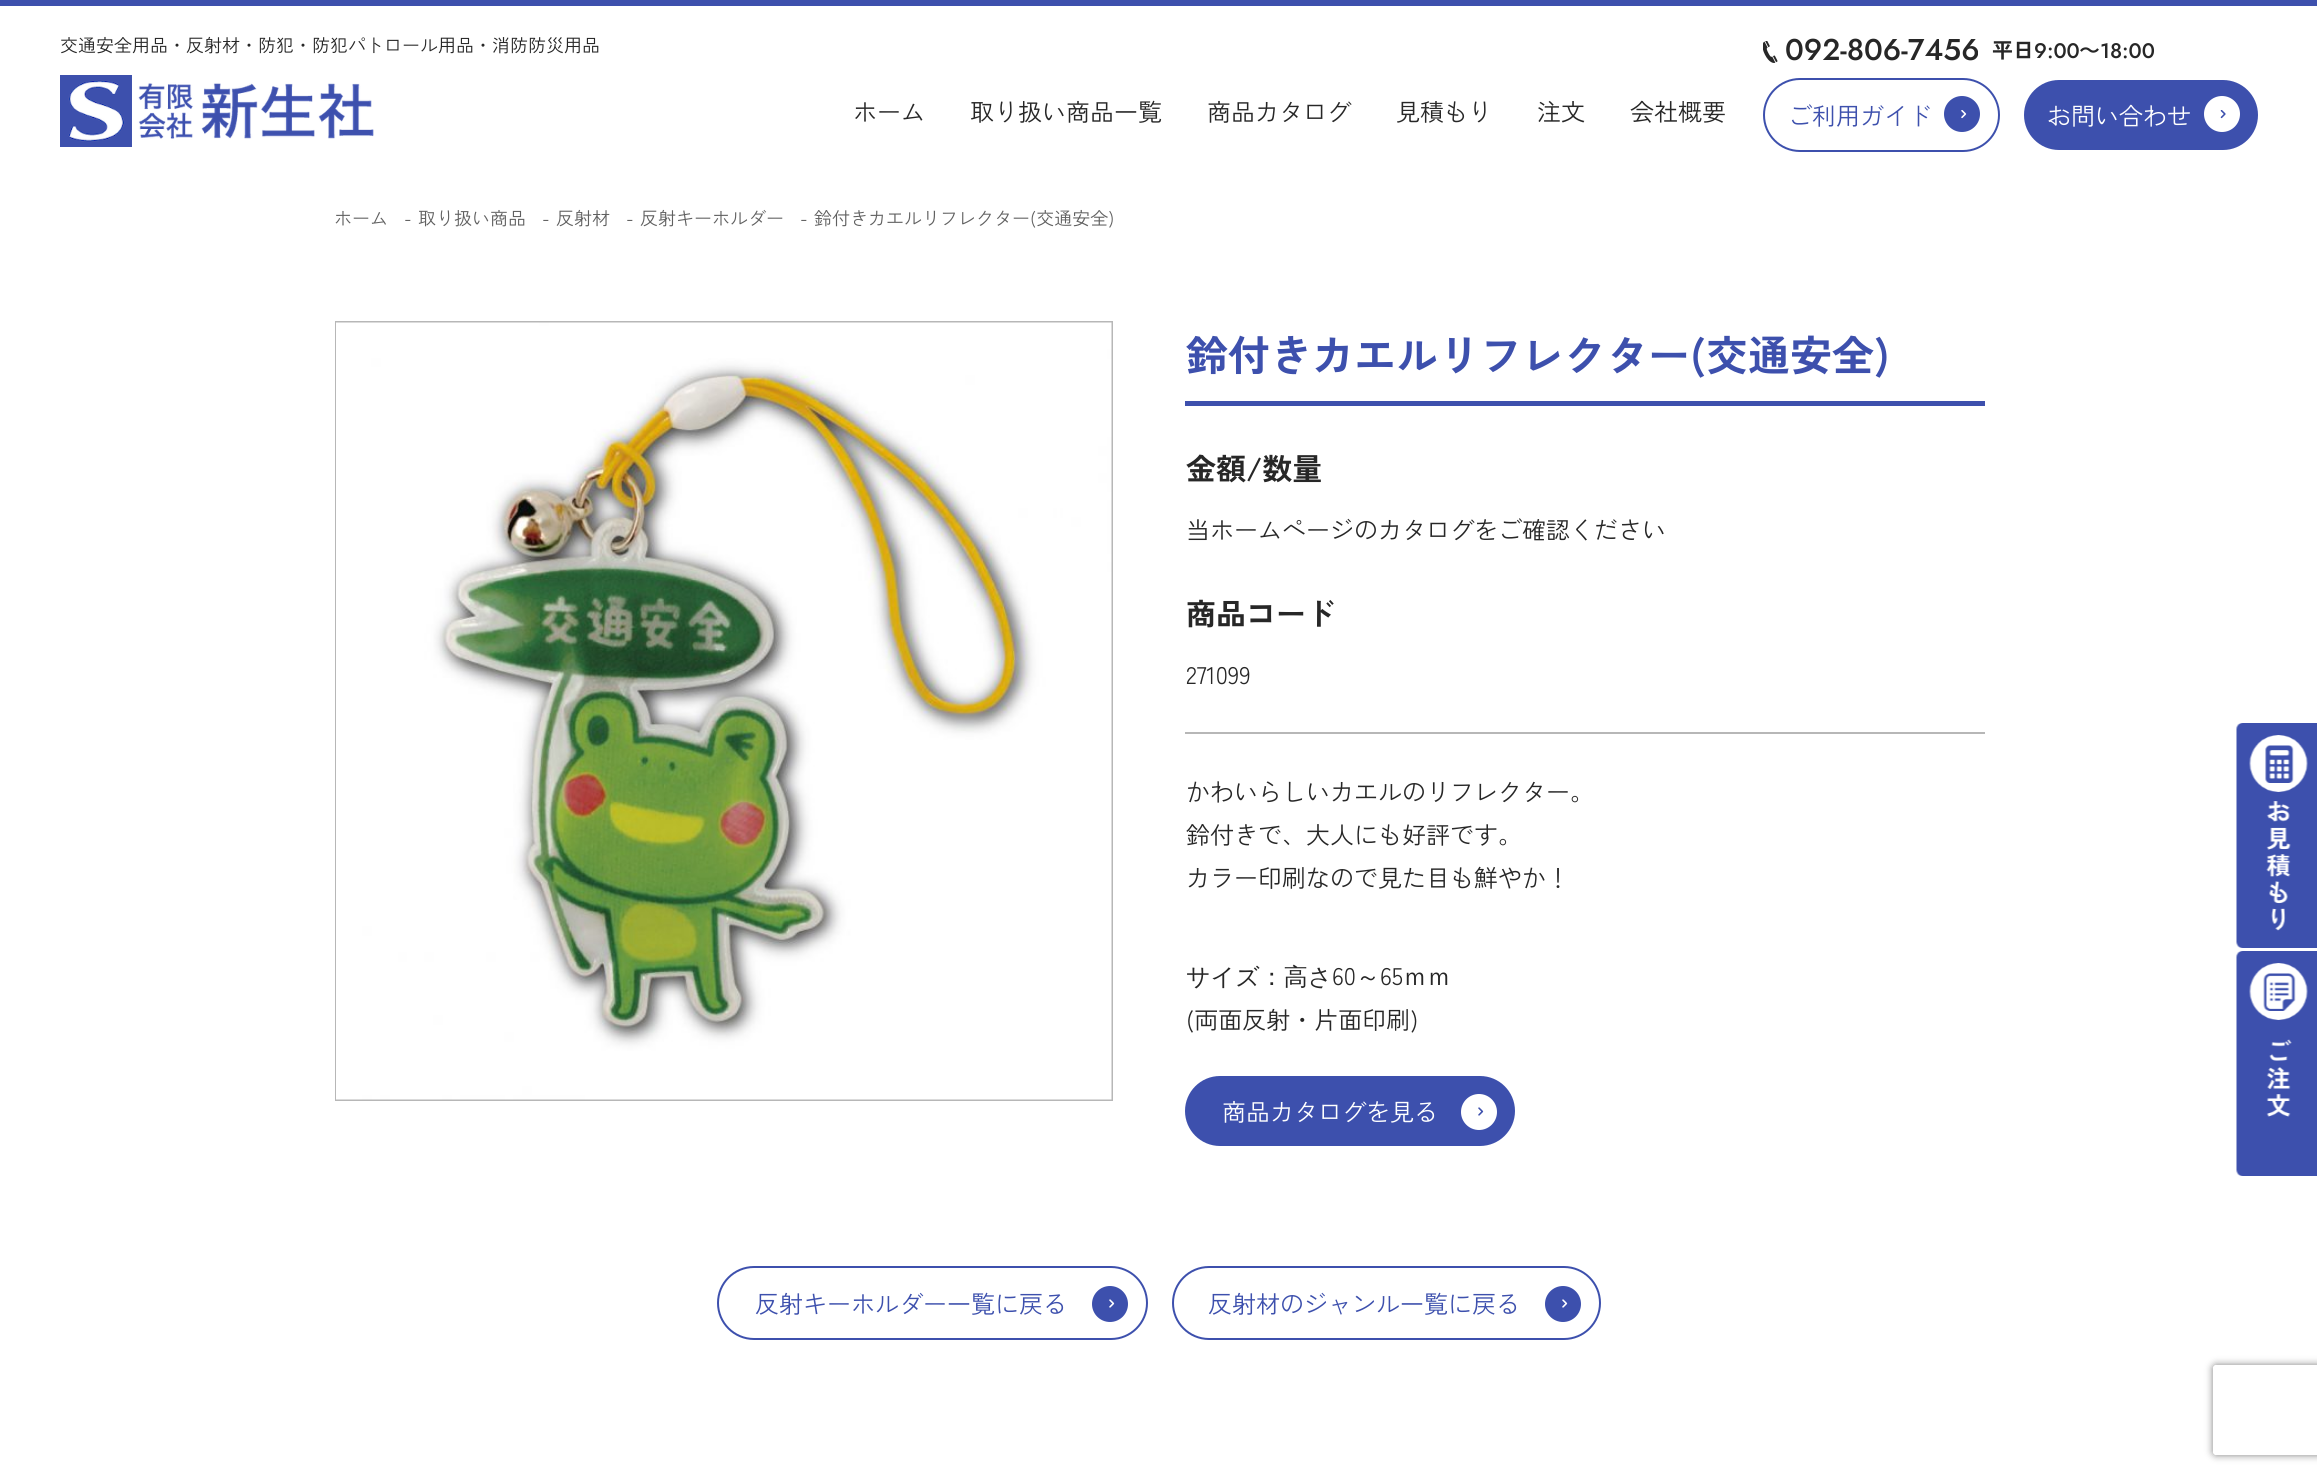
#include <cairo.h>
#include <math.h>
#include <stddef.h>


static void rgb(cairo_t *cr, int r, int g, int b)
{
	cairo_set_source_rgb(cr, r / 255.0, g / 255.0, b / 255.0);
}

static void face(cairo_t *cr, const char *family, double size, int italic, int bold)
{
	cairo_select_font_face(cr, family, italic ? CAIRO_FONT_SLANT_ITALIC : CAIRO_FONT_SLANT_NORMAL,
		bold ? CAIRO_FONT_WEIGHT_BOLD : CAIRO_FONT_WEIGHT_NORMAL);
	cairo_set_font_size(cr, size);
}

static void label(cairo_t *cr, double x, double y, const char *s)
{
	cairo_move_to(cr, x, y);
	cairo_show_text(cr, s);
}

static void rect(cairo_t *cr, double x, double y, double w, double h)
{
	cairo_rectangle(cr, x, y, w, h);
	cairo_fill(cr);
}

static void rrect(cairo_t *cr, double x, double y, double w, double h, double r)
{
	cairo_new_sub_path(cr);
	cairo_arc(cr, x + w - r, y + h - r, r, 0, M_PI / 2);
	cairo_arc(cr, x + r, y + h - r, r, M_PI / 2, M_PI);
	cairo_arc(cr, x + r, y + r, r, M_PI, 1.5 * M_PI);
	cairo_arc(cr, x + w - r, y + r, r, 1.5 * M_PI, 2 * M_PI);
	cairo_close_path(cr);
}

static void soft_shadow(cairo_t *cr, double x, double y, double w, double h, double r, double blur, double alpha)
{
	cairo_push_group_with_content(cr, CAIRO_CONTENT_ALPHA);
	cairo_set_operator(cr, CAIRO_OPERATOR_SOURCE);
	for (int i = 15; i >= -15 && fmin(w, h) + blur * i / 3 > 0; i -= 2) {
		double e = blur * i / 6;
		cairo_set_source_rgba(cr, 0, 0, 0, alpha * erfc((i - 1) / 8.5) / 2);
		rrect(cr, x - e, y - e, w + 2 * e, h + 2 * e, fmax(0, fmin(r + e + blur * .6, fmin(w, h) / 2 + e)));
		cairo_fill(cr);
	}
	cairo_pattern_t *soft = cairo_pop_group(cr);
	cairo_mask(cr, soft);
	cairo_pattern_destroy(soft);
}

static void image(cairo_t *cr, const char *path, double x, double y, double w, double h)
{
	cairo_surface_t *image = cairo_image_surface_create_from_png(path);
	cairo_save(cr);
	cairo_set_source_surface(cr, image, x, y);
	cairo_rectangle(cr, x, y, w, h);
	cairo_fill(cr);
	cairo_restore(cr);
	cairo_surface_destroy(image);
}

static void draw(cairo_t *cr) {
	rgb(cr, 255, 255, 255);
	cairo_paint(cr);
	rgb(cr, 61, 80, 173);
	rect(cr, 0, 0, 2317, 6);
	face(cr, "Zen Kaku Gothic Antique", 18, 0, 0);
	rgb(cr, 39, 39, 39);
	label(cr, 60, 52, "交通安全用品・反射材・防犯・防犯パトロール用品・消防防災用品");
	image(cr, "image0.png", 60, 75, 314, 72);
	face(cr, "Zen Kaku Gothic Antique", 24, 0, 0);
	label(cr, 853, 121, "ホーム");
	label(cr, 970, 121, "取り扱い商品一覧");
	label(cr, 1207, 121, "商品カタログ");
	label(cr, 1396, 121, "見積もり");
	label(cr, 1537, 121, "注文");
	label(cr, 1630, 121, "会社概要");
	image(cr, "image1.png", 1763, 41, 15, 22);
	face(cr, "Jost Medium", 30, 0, 0);
	label(cr, 1785, 60, "092-806-7456");
	face(cr, "Zen Kaku Gothic Antique", 21, 0, 1);
	label(cr, 1992, 58, "平日");
	face(cr, "Jost Medium", 21, 0, 0);
	label(cr, 2034, 58, "9:00");
	face(cr, "WenQuanYi Zen Hei Medium", 21, 0, 0);
	label(cr, 2079, 58, "〜");
	face(cr, "Jost Medium", 21, 0, 0);
	label(cr, 2100, 58, "18:00");
	rrect(cr, 1764, 79, 235, 72, 36);
	rgb(cr, 61, 80, 173);
	cairo_stroke(cr);
	face(cr, "Zen Kaku Gothic Antique", 24, 0, 0);
	label(cr, 1788, 125, "ご利用ガイド");
	cairo_new_path(cr);
	cairo_arc(cr, 1962, 114, 18, 0, 2 * M_PI);
	cairo_fill(cr);
	image(cr, "image2.png", 1961, 110, 6, 9);
	rrect(cr, 2024, 80, 234, 70, 35);
	cairo_fill(cr);
	rgb(cr, 255, 255, 255);
	label(cr, 2047, 125, "お問い合わせ");
	cairo_new_path(cr);
	cairo_arc(cr, 2222, 114, 18, 0, 2 * M_PI);
	cairo_fill(cr);
	image(cr, "image3.png", 2220, 110, 6, 9);
	face(cr, "Zen Kaku Gothic Antique", 18, 0, 0);
	rgb(cr, 96, 96, 96);
	label(cr, 334, 225, "ホーム");
	label(cr, 404, 225, "-");
	label(cr, 418, 225, "取り扱い商品");
	label(cr, 542, 225, "-");
	label(cr, 556, 225, "反射材");
	label(cr, 626, 225, "-");
	label(cr, 640, 225, "反射キーホルダー");
	label(cr, 800, 225, "-");
	label(cr, 814, 225, "鈴付きカエルリフレクター(交通安全)");
	cairo_rectangle(cr, 336, 322, 776, 778);
	rgb(cr, 183, 183, 183);
	cairo_stroke(cr);
	image(cr, "image4.png", 336, 322, 776, 778);
	rgb(cr, 61, 80, 173);
	rect(cr, 1185, 401, 800, 5);
	face(cr, "Zen Kaku Gothic Antique", 42, 0, 1);
	label(cr, 1186, 371, "鈴付きカエルリフレクター(交通安全)");
	face(cr, "Zen Kaku Gothic Antique", 30, 0, 1);
	rgb(cr, 39, 39, 39);
	label(cr, 1186, 480, "金額/数量");
	face(cr, "Zen Kaku Gothic Antique", 24, 0, 0);
	label(cr, 1186, 539, "当ホームページのカタログをご確認ください");
	face(cr, "Zen Kaku Gothic Antique", 30, 0, 1);
	label(cr, 1186, 625, "商品コード");
	face(cr, "Zen Kaku Gothic Antique", 24, 0, 0);
	label(cr, 1186, 684, "271099");
	rgb(cr, 183, 183, 183);
	rect(cr, 1185, 732, 800, 2);
	rgb(cr, 39, 39, 39);
	label(cr, 1186, 801, "かわいらしいカエルのリフレクター。");
	label(cr, 1186, 844, "鈴付きで、大人にも好評です。");
	label(cr, 1186, 887, "カラー印刷なので見た目も鮮やか！");
	face(cr, "WenQuanYi Zen Hei Medium", 24, 0, 0);
	label(cr, 1186, 985, "サイズ：高さ");
	face(cr, "Zen Kaku Gothic Antique", 24, 0, 0);
	label(cr, 1332, 985, "60");
	face(cr, "WenQuanYi Zen Hei Medium", 24, 0, 0);
	label(cr, 1356, 985, "～");
	face(cr, "Zen Kaku Gothic Antique", 24, 0, 0);
	label(cr, 1380, 985, "65");
	face(cr, "WenQuanYi Zen Hei Medium", 24, 0, 0);
	label(cr, 1403, 985, "ｍｍ");
	face(cr, "Zen Kaku Gothic Antique", 24, 0, 0);
	label(cr, 1186, 1029, "(両面反射・片面印刷)");
	rgb(cr, 61, 80, 173);
	rrect(cr, 1185, 1076, 330, 70, 35);
	cairo_fill(cr);
	rgb(cr, 255, 255, 255);
	label(cr, 1222, 1121, "商品カタログを見る");
	cairo_new_path(cr);
	cairo_arc(cr, 1479, 1112, 18, 0, 2 * M_PI);
	cairo_fill(cr);
	image(cr, "image5.png", 1478, 1107, 6, 9);
	rrect(cr, 718, 1267, 429, 72, 36);
	rgb(cr, 61, 80, 173);
	cairo_stroke(cr);
	label(cr, 755, 1313, "反射キーホルダー一覧に戻る");
	cairo_new_path(cr);
	cairo_arc(cr, 1110, 1304, 18, 0, 2 * M_PI);
	cairo_fill(cr);
	image(cr, "image6.png", 1109, 1299, 6, 9);
	rrect(cr, 1173, 1267, 427, 72, 36);
	cairo_stroke(cr);
	label(cr, 1208, 1313, "反射材のジャンル一覧に戻る");
	cairo_new_path(cr);
	cairo_arc(cr, 1563, 1304, 18, 0, 2 * M_PI);
	cairo_fill(cr);
	image(cr, "image6.png", 1562, 1299, 6, 9);
	image(cr, "image7.png", 2236, 723, 81, 225);
	image(cr, "image8.png", 2236, 951, 81, 225);
	cairo_save(cr);
	cairo_set_fill_rule(cr, CAIRO_FILL_RULE_EVEN_ODD);
	cairo_new_path(cr);
	cairo_move_to(cr, 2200, 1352);
	cairo_line_to(cr, 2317, 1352);
	cairo_line_to(cr, 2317, 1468);
	cairo_line_to(cr, 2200, 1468);
	cairo_close_path(cr);
	cairo_move_to(cr, 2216, 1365);
	cairo_line_to(cr, 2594, 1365);
	cairo_curve_to(cr, 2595.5, 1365, 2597, 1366.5, 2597, 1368);
	cairo_line_to(cr, 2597, 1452);
	cairo_curve_to(cr, 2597, 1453.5, 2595.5, 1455, 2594, 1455);
	cairo_line_to(cr, 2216, 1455);
	cairo_curve_to(cr, 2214.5, 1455, 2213, 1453.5, 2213, 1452);
	cairo_line_to(cr, 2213, 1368);
	cairo_curve_to(cr, 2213, 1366.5, 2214.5, 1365, 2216, 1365);
	cairo_close_path(cr);
	cairo_clip(cr);
	rgb(cr, 128, 128, 128);
	soft_shadow(cr, 2213, 1365, 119, 90, 3, 4, 1);
	cairo_restore(cr);
}

int main(void) {
	cairo_surface_t *surface = cairo_image_surface_create(CAIRO_FORMAT_RGB24, 2317, 1475);
	cairo_t *cr = cairo_create(surface);
	cairo_font_options_t *options = cairo_font_options_create();
	cairo_font_options_set_hint_metrics(options, CAIRO_HINT_METRICS_OFF);
	cairo_font_options_set_hint_style(options, CAIRO_HINT_STYLE_NONE);
	cairo_set_font_options(cr, options);
	cairo_set_miter_limit(cr, 4);
	draw(cr);
	cairo_surface_write_to_png(surface, "render.png");
	cairo_font_options_destroy(options);
	cairo_destroy(cr);
	cairo_surface_destroy(surface);
	return 0;
}
